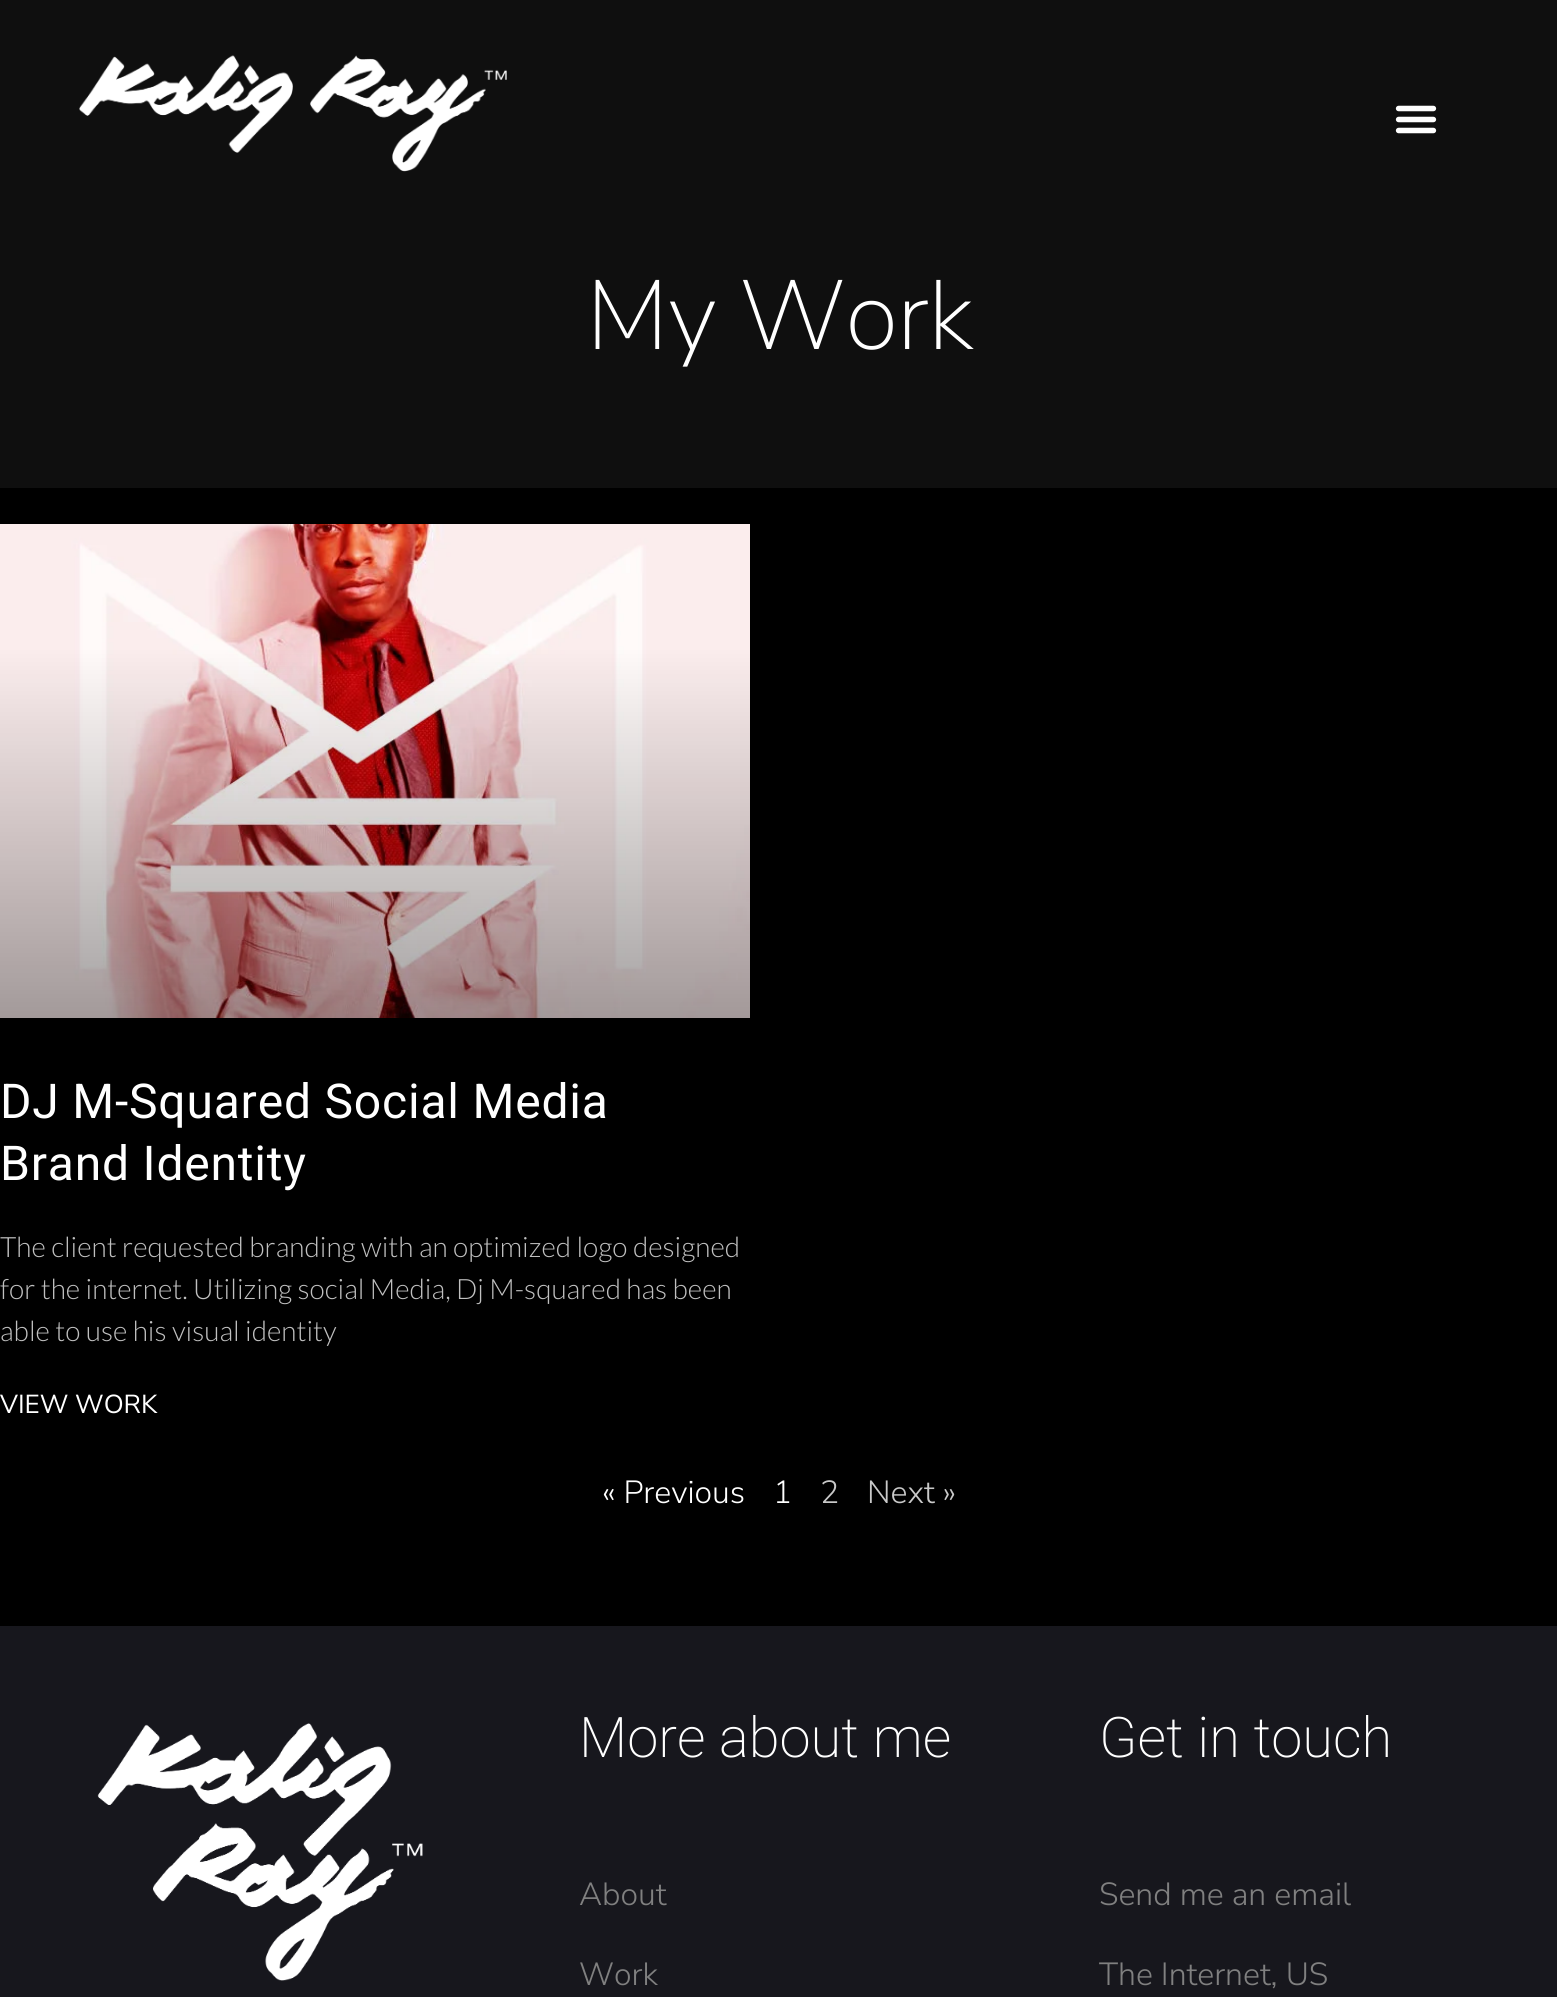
#include <cairo.h>
#include <math.h>
#include <stddef.h>


static void rgb(cairo_t *cr, int r, int g, int b)
{
	cairo_set_source_rgb(cr, r / 255.0, g / 255.0, b / 255.0);
}

static void face(cairo_t *cr, const char *family, double size, int italic, int bold)
{
	cairo_select_font_face(cr, family, italic ? CAIRO_FONT_SLANT_ITALIC : CAIRO_FONT_SLANT_NORMAL,
		bold ? CAIRO_FONT_WEIGHT_BOLD : CAIRO_FONT_WEIGHT_NORMAL);
	cairo_set_font_size(cr, size);
}

static void label(cairo_t *cr, double x, double y, const char *s)
{
	cairo_move_to(cr, x, y);
	cairo_show_text(cr, s);
}

static void tracked(cairo_t *cr, double x, double y, const char *s, double letter, double word)
{
	cairo_move_to(cr, x, y);
	while (*s) {
		char ch[5] = {0};
		int n = 0;
		do ch[n++] = *s++; while ((*s & 0xC0) == 0x80);
		cairo_show_text(cr, ch);
		cairo_rel_move_to(cr, letter + word * (*ch == ' '), 0);
	}
}

static void rect(cairo_t *cr, double x, double y, double w, double h)
{
	cairo_rectangle(cr, x, y, w, h);
	cairo_fill(cr);
}

static void image(cairo_t *cr, const char *path, double x, double y, double w, double h)
{
	cairo_surface_t *image = cairo_image_surface_create_from_png(path);
	cairo_save(cr);
	cairo_set_source_surface(cr, image, x, y);
	cairo_rectangle(cr, x, y, w, h);
	cairo_fill(cr);
	cairo_restore(cr);
	cairo_surface_destroy(image);
}

static void draw(cairo_t *cr) {
	rgb(cr, 23, 23, 29);
	cairo_paint(cr);
	rgb(cr, 15, 15, 15);
	rect(cr, 0, 0, 1557, 488);
	image(cr, "image0.png", 79, 55, 428, 117);
	image(cr, "image1.png", 1395, 105, 42, 29);
	face(cr, "Nunito Sans ExtraLight", 98, 0, 0);
	rgb(cr, 255, 255, 255);
	tracked(cr, 586, 349, "My Work", -1, 0);
	rgb(cr, 0, 0, 0);
	rect(cr, 0, 488, 1557, 1138);
	image(cr, "image2.png", 0, 524, 750, 494);
	face(cr, "Roboto", 48, 0, 0);
	rgb(cr, 255, 255, 255);
	tracked(cr, 0, 1118, "DJ M-Squared Social Media", 0.8, 0);
	tracked(cr, 0, 1180, "Brand Identity", 0.8, 0);
	face(cr, "Lato Light", 28, 0, 0);
	rgb(cr, 192, 192, 192);
	label(cr, 0, 1257, "The client requested branding with an optimized logo designed");
	label(cr, 0, 1299, "for the internet. Utilizing social Media, Dj M-squared has been");
	label(cr, 0, 1341, "able to use his visual identity");
	face(cr, "Nunito Sans", 26, 0, 0);
	rgb(cr, 255, 255, 255);
	label(cr, 0, 1413, "VIEW WORK");
	face(cr, "Nunito Sans Light", 32, 0, 0);
	label(cr, 602, 1503, "« Previous");
	label(cr, 773, 1503, "1");
	rgb(cr, 201, 201, 201);
	label(cr, 820, 1503, "2");
	label(cr, 867, 1503, "Next »");
	image(cr, "image3.png", 97, 1723, 326, 258);
	face(cr, "Roboto ExtraLight", 56, 0, 0);
	rgb(cr, 255, 255, 255);
	label(cr, 579, 1757, "More about me");
	face(cr, "Nunito Sans Light", 32, 0, 0);
	rgb(cr, 128, 128, 128);
	label(cr, 579, 1905, "About");
	label(cr, 579, 1985, "Work");
	face(cr, "Roboto ExtraLight", 56, 0, 0);
	rgb(cr, 255, 255, 255);
	label(cr, 1099, 1757, "Get in touch");
	face(cr, "Nunito Sans Light", 32, 0, 0);
	rgb(cr, 128, 128, 128);
	label(cr, 1099, 1905, "Send me an email");
	label(cr, 1099, 1985, "The Internet, US");
}

int main(void) {
	cairo_surface_t *surface = cairo_image_surface_create(CAIRO_FORMAT_RGB24, 1557, 1997);
	cairo_t *cr = cairo_create(surface);
	cairo_font_options_t *options = cairo_font_options_create();
	cairo_font_options_set_hint_metrics(options, CAIRO_HINT_METRICS_OFF);
	cairo_font_options_set_hint_style(options, CAIRO_HINT_STYLE_NONE);
	cairo_set_font_options(cr, options);
	cairo_set_miter_limit(cr, 4);
	draw(cr);
	cairo_surface_write_to_png(surface, "render.png");
	cairo_font_options_destroy(options);
	cairo_destroy(cr);
	cairo_surface_destroy(surface);
	return 0;
}
